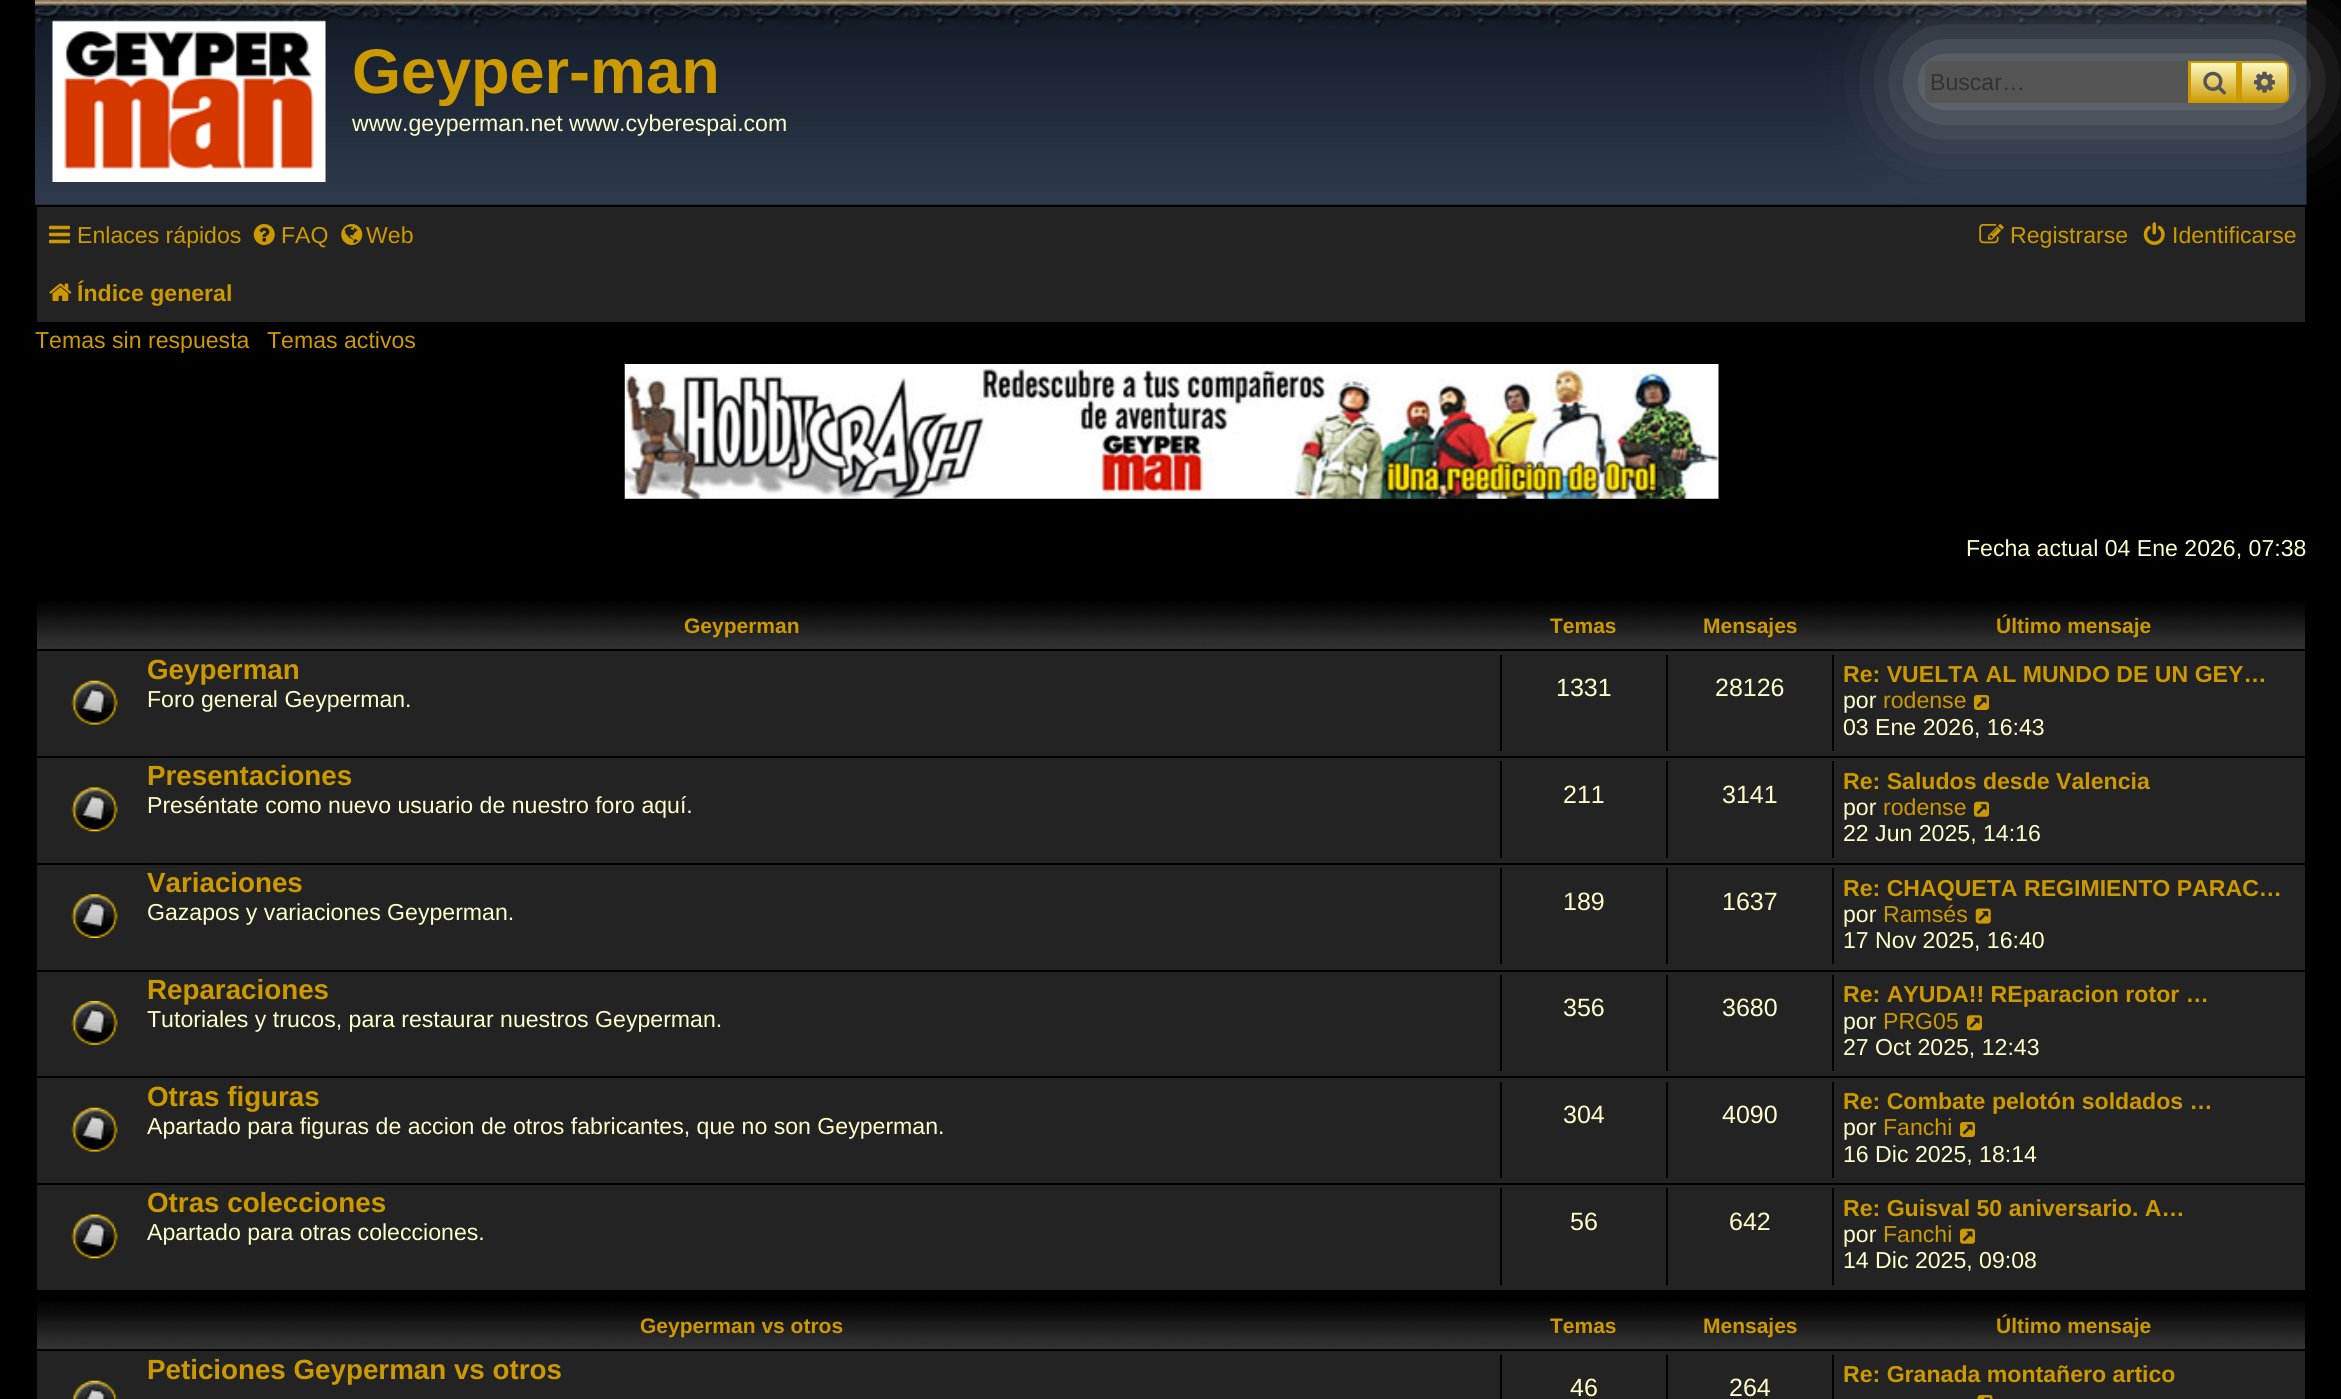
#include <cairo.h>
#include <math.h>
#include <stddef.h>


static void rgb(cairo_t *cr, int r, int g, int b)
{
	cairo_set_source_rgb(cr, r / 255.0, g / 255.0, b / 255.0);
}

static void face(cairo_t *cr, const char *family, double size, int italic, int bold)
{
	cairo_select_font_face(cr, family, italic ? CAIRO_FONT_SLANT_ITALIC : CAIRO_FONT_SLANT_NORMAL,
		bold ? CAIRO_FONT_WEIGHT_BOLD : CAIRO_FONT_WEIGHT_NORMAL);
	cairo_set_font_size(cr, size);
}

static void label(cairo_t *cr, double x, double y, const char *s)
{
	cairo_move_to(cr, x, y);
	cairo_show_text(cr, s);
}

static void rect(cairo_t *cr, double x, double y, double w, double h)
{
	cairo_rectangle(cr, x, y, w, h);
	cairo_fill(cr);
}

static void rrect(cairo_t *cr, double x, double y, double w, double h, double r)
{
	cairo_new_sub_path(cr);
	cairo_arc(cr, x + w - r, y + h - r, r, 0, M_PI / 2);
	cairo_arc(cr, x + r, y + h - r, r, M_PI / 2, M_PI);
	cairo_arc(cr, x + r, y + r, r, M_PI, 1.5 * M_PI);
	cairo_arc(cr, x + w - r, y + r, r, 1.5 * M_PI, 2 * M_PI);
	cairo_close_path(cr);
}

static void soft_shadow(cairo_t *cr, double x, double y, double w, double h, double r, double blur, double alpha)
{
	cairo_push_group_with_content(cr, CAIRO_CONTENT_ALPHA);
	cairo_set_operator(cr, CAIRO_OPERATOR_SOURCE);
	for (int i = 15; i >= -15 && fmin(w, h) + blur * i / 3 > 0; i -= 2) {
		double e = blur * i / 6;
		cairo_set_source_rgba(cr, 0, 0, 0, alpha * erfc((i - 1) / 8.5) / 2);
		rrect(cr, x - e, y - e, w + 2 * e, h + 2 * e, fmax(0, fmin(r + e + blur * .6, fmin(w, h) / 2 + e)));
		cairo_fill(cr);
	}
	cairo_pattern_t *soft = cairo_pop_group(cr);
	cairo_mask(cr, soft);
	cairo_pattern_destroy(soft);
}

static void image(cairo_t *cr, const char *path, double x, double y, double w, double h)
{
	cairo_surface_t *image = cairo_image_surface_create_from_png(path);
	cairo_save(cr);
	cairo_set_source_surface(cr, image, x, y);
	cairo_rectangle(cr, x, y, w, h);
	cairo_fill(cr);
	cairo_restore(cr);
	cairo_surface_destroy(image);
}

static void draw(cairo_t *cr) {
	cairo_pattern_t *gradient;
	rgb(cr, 0, 0, 0);
	cairo_paint(cr);
	image(cr, "image0.png", 35, 0, 2272, 205);
	image(cr, "image1.png", 52, 20, 274, 162);
	face(cr, "Liberation Sans", 63, 0, 1);
	rgb(cr, 204, 153, 0);
	label(cr, 352, 93, "Geyper-man");
	face(cr, "Liberation Sans", 23.1, 0, 0);
	rgb(cr, 255, 255, 204);
	label(cr, 352, 131, "www.geyperman.net www.cyberespai.com");
	rgb(cr, 35, 35, 35);
	rect(cr, 37, 207, 2268, 115);
	rgb(cr, 153, 153, 153);
	soft_shadow(cr, 1925, 61, 364, 42, 7, 44, 1);
	rgb(cr, 85, 85, 85);
	cairo_new_path(cr);
	cairo_move_to(cr, 1932, 61);
	cairo_line_to(cr, 2188, 61);
	cairo_line_to(cr, 2188, 103);
	cairo_line_to(cr, 1932, 103);
	cairo_curve_to(cr, 1928, 103, 1925, 100, 1925, 96);
	cairo_line_to(cr, 1925, 68);
	cairo_curve_to(cr, 1925, 64, 1928, 61, 1932, 61);
	cairo_close_path(cr);
	cairo_fill(cr);
	rgb(cr, 51, 51, 51);
	label(cr, 1930, 90, "Buscar…");
	gradient = cairo_pattern_create_linear(2214, 61, 2214, 103);
	cairo_pattern_add_color_stop_rgba(gradient, 0, 1, 1, 0.8, 1);
	cairo_pattern_add_color_stop_rgba(gradient, 1, 0.8, 0.6, 0, 1);
	cairo_set_source(cr, gradient);
	cairo_pattern_destroy(gradient);
	rect(cr, 2191, 63, 45, 38);
	cairo_rectangle(cr, 2190, 62, 47, 40);
	rgb(cr, 204, 153, 0);
	cairo_stroke(cr);
	rect(cr, 2238, 61, 2, 42);
	rect(cr, 2188, 61, 1, 42);
	image(cr, "image2.png", 2203, 71, 23, 24);
	gradient = cairo_pattern_create_linear(2265, 61, 2265, 103);
	cairo_pattern_add_color_stop_rgba(gradient, 0, 1, 1, 0.8, 1);
	cairo_pattern_add_color_stop_rgba(gradient, 1, 0.8, 0.6, 0, 1);
	cairo_set_source(cr, gradient);
	cairo_pattern_destroy(gradient);
	cairo_new_path(cr);
	cairo_move_to(cr, 2241, 62);
	cairo_line_to(cr, 2282, 62);
	cairo_curve_to(cr, 2285.5, 62, 2288, 64.5, 2288, 68);
	cairo_line_to(cr, 2288, 96);
	cairo_curve_to(cr, 2288, 99.5, 2285.5, 102, 2282, 102);
	cairo_line_to(cr, 2241, 102);
	cairo_close_path(cr);
	cairo_fill_preserve(cr);
	rgb(cr, 204, 153, 0);
	cairo_stroke(cr);
	image(cr, "image3.png", 2254, 71, 21, 22);
	image(cr, "image4.png", 49, 225, 21, 19);
	label(cr, 77, 243, "Enlaces rápidos");
	image(cr, "image5.png", 253, 224, 22, 21);
	label(cr, 281, 243, "FAQ");
	image(cr, "image6.png", 341, 224, 22, 21);
	label(cr, 366, 243, "Web");
	image(cr, "image7.png", 1979, 224, 25, 20);
	label(cr, 2010, 243, "Registrarse");
	image(cr, "image8.png", 2143, 222, 22, 23);
	label(cr, 2172, 243, "Identificarse");
	image(cr, "image9.png", 49, 283, 23, 18);
	face(cr, "Liberation Sans", 23.1, 0, 1);
	label(cr, 77, 301, "Índice general");
	face(cr, "Liberation Sans", 23.1, 0, 0);
	label(cr, 35, 348, "Temas sin respuesta");
	label(cr, 267, 348, "Temas activos");
	image(cr, "image10.png", 624, 364, 1095, 135);
	rgb(cr, 255, 255, 204);
	label(cr, 1966, 556, "Fecha actual 04 Ene 2026, 07:38");
	image(cr, "image11.png", 37, 601, 2268, 48);
	face(cr, "Liberation Sans", 21, 0, 1);
	rgb(cr, 204, 153, 0);
	label(cr, 684, 633, "Geyperman");
	label(cr, 1550, 633, "Temas");
	label(cr, 1703, 633, "Mensajes");
	label(cr, 1996, 633, "Último mensaje");
	rgb(cr, 35, 35, 35);
	rect(cr, 37, 651, 2268, 639);
	image(cr, "image12.png", 71, 680, 47, 45);
	face(cr, "Liberation Sans", 27.75, 0, 1);
	rgb(cr, 204, 153, 0);
	label(cr, 147, 679, "Geyperman");
	face(cr, "Liberation Sans", 23.1, 0, 0);
	rgb(cr, 255, 255, 204);
	label(cr, 147, 707, "Foro general Geyperman.");
	rgb(cr, 0, 0, 0);
	rect(cr, 1500, 655, 2, 96);
	face(cr, "Liberation Sans", 25, 0, 0);
	rgb(cr, 255, 255, 204);
	label(cr, 1556, 696, "1331");
	rgb(cr, 0, 0, 0);
	rect(cr, 1666, 655, 2, 96);
	rgb(cr, 255, 255, 204);
	label(cr, 1715, 696, "28126");
	rgb(cr, 0, 0, 0);
	rect(cr, 1832, 655, 2, 96);
	face(cr, "Liberation Sans", 23.1, 0, 1);
	rgb(cr, 204, 153, 0);
	label(cr, 1843, 682, "Re: VUELTA AL MUNDO DE UN GEY…");
	face(cr, "Liberation Sans", 23.1, 0, 0);
	rgb(cr, 255, 255, 204);
	label(cr, 1843, 708, "por");
	rgb(cr, 204, 153, 0);
	label(cr, 1883, 708, "rodense");
	image(cr, "image13.png", 1974, 695, 15, 15);
	rgb(cr, 255, 255, 204);
	label(cr, 1843, 735, "03 Ene 2026, 16:43");
	rgb(cr, 0, 0, 0);
	rect(cr, 37, 756, 2268, 2);
	image(cr, "image14.png", 71, 787, 47, 45);
	face(cr, "Liberation Sans", 27.75, 0, 1);
	rgb(cr, 204, 153, 0);
	label(cr, 147, 785, "Presentaciones");
	face(cr, "Liberation Sans", 23.1, 0, 0);
	rgb(cr, 255, 255, 204);
	label(cr, 147, 813, "Preséntate como nuevo usuario de nuestro foro aquí.");
	rgb(cr, 0, 0, 0);
	rect(cr, 1500, 761, 2, 97);
	face(cr, "Liberation Sans", 25, 0, 0);
	rgb(cr, 255, 255, 204);
	label(cr, 1563, 803, "211");
	rgb(cr, 0, 0, 0);
	rect(cr, 1666, 761, 2, 97);
	rgb(cr, 255, 255, 204);
	label(cr, 1722, 803, "3141");
	rgb(cr, 0, 0, 0);
	rect(cr, 1832, 761, 2, 97);
	face(cr, "Liberation Sans", 23.1, 0, 1);
	rgb(cr, 204, 153, 0);
	label(cr, 1843, 789, "Re: Saludos desde Valencia");
	face(cr, "Liberation Sans", 23.1, 0, 0);
	rgb(cr, 255, 255, 204);
	label(cr, 1843, 815, "por");
	rgb(cr, 204, 153, 0);
	label(cr, 1883, 815, "rodense");
	image(cr, "image15.png", 1974, 801, 15, 16);
	rgb(cr, 255, 255, 204);
	label(cr, 1843, 841, "22 Jun 2025, 14:16");
	rgb(cr, 0, 0, 0);
	rect(cr, 37, 863, 2268, 2);
	image(cr, "image16.png", 71, 894, 47, 44);
	face(cr, "Liberation Sans", 27.75, 0, 1);
	rgb(cr, 204, 153, 0);
	label(cr, 147, 892, "Variaciones");
	face(cr, "Liberation Sans", 23.1, 0, 0);
	rgb(cr, 255, 255, 204);
	label(cr, 147, 920, "Gazapos y variaciones Geyperman.");
	rgb(cr, 0, 0, 0);
	rect(cr, 1500, 868, 2, 96);
	face(cr, "Liberation Sans", 25, 0, 0);
	rgb(cr, 255, 255, 204);
	label(cr, 1563, 910, "189");
	rgb(cr, 0, 0, 0);
	rect(cr, 1666, 868, 2, 96);
	rgb(cr, 255, 255, 204);
	label(cr, 1722, 910, "1637");
	rgb(cr, 0, 0, 0);
	rect(cr, 1832, 868, 2, 96);
	face(cr, "Liberation Sans", 23.1, 0, 1);
	rgb(cr, 204, 153, 0);
	label(cr, 1843, 896, "Re: CHAQUETA REGIMIENTO PARAC…");
	face(cr, "Liberation Sans", 23.1, 0, 0);
	rgb(cr, 255, 255, 204);
	label(cr, 1843, 922, "por");
	rgb(cr, 204, 153, 0);
	label(cr, 1883, 922, "Ramsés");
	image(cr, "image17.png", 1975, 908, 16, 16);
	rgb(cr, 255, 255, 204);
	label(cr, 1843, 948, "17 Nov 2025, 16:40");
	rgb(cr, 0, 0, 0);
	rect(cr, 37, 970, 2268, 2);
	image(cr, "image18.png", 71, 1001, 47, 44);
	face(cr, "Liberation Sans", 27.75, 0, 1);
	rgb(cr, 204, 153, 0);
	label(cr, 147, 999, "Reparaciones");
	face(cr, "Liberation Sans", 23.1, 0, 0);
	rgb(cr, 255, 255, 204);
	label(cr, 147, 1027, "Tutoriales y trucos, para restaurar nuestros Geyperman.");
	rgb(cr, 0, 0, 0);
	rect(cr, 1500, 975, 2, 96);
	face(cr, "Liberation Sans", 25, 0, 0);
	rgb(cr, 255, 255, 204);
	label(cr, 1563, 1016, "356");
	rgb(cr, 0, 0, 0);
	rect(cr, 1666, 975, 2, 96);
	rgb(cr, 255, 255, 204);
	label(cr, 1722, 1016, "3680");
	rgb(cr, 0, 0, 0);
	rect(cr, 1832, 975, 2, 96);
	face(cr, "Liberation Sans", 23.1, 0, 1);
	rgb(cr, 204, 153, 0);
	label(cr, 1843, 1002, "Re: AYUDA!! REparacion rotor …");
	face(cr, "Liberation Sans", 23.1, 0, 0);
	rgb(cr, 255, 255, 204);
	label(cr, 1843, 1029, "por");
	rgb(cr, 204, 153, 0);
	label(cr, 1883, 1029, "PRG05");
	image(cr, "image19.png", 1967, 1015, 15, 16);
	rgb(cr, 255, 255, 204);
	label(cr, 1843, 1055, "27 Oct 2025, 12:43");
	rgb(cr, 0, 0, 0);
	rect(cr, 37, 1076, 2268, 2);
	image(cr, "image12.png", 71, 1107, 47, 45);
	face(cr, "Liberation Sans", 27.75, 0, 1);
	rgb(cr, 204, 153, 0);
	label(cr, 147, 1106, "Otras figuras");
	face(cr, "Liberation Sans", 23.1, 0, 0);
	rgb(cr, 255, 255, 204);
	label(cr, 147, 1134, "Apartado para figuras de accion de otros fabricantes, que no son Geyperman.");
	rgb(cr, 0, 0, 0);
	rect(cr, 1500, 1082, 2, 96);
	face(cr, "Liberation Sans", 25, 0, 0);
	rgb(cr, 255, 255, 204);
	label(cr, 1563, 1123, "304");
	rgb(cr, 0, 0, 0);
	rect(cr, 1666, 1082, 2, 96);
	rgb(cr, 255, 255, 204);
	label(cr, 1722, 1123, "4090");
	rgb(cr, 0, 0, 0);
	rect(cr, 1832, 1082, 2, 96);
	face(cr, "Liberation Sans", 23.1, 0, 1);
	rgb(cr, 204, 153, 0);
	label(cr, 1843, 1109, "Re: Combate pelotón soldados …");
	face(cr, "Liberation Sans", 23.1, 0, 0);
	rgb(cr, 255, 255, 204);
	label(cr, 1843, 1135, "por");
	rgb(cr, 204, 153, 0);
	label(cr, 1883, 1135, "Fanchi");
	image(cr, "image13.png", 1960, 1122, 15, 15);
	rgb(cr, 255, 255, 204);
	label(cr, 1843, 1162, "16 Dic 2025, 18:14");
	rgb(cr, 0, 0, 0);
	rect(cr, 37, 1183, 2268, 2);
	image(cr, "image14.png", 71, 1214, 47, 45);
	face(cr, "Liberation Sans", 27.75, 0, 1);
	rgb(cr, 204, 153, 0);
	label(cr, 147, 1212, "Otras colecciones");
	face(cr, "Liberation Sans", 23.1, 0, 0);
	rgb(cr, 255, 255, 204);
	label(cr, 147, 1240, "Apartado para otras colecciones.");
	rgb(cr, 0, 0, 0);
	rect(cr, 1500, 1188, 2, 97);
	face(cr, "Liberation Sans", 25, 0, 0);
	rgb(cr, 255, 255, 204);
	label(cr, 1570, 1230, "56");
	rgb(cr, 0, 0, 0);
	rect(cr, 1666, 1188, 2, 97);
	rgb(cr, 255, 255, 204);
	label(cr, 1729, 1230, "642");
	rgb(cr, 0, 0, 0);
	rect(cr, 1832, 1188, 2, 97);
	face(cr, "Liberation Sans", 23.1, 0, 1);
	rgb(cr, 204, 153, 0);
	label(cr, 1843, 1216, "Re: Guisval 50 aniversario. A…");
	face(cr, "Liberation Sans", 23.1, 0, 0);
	rgb(cr, 255, 255, 204);
	label(cr, 1843, 1242, "por");
	rgb(cr, 204, 153, 0);
	label(cr, 1883, 1242, "Fanchi");
	image(cr, "image15.png", 1960, 1228, 15, 16);
	rgb(cr, 255, 255, 204);
	label(cr, 1843, 1268, "14 Dic 2025, 09:08");
	image(cr, "image20.png", 37, 1301, 2268, 48);
	face(cr, "Liberation Sans", 21, 0, 1);
	rgb(cr, 204, 153, 0);
	label(cr, 640, 1333, "Geyperman vs otros");
	label(cr, 1550, 1333, "Temas");
	label(cr, 1703, 1333, "Mensajes");
	label(cr, 1996, 1333, "Último mensaje");
	rgb(cr, 35, 35, 35);
	rect(cr, 37, 1351, 2268, 48);
	image(cr, "image21.png", 71, 1380, 47, 19);
	face(cr, "Liberation Sans", 27.75, 0, 1);
	rgb(cr, 204, 153, 0);
	label(cr, 147, 1379, "Peticiones Geyperman vs otros");
	rgb(cr, 0, 0, 0);
	rect(cr, 1832, 1355, 2, 44);
	face(cr, "Liberation Sans", 23.1, 0, 1);
	rgb(cr, 204, 153, 0);
	label(cr, 1843, 1382, "Re: Granada montañero artico");
	image(cr, "image22.png", 1977, 1395, 16, 4);
	rgb(cr, 0, 0, 0);
	rect(cr, 1500, 1355, 2, 44);
	face(cr, "Liberation Sans", 25, 0, 0);
	rgb(cr, 255, 255, 204);
	label(cr, 1570, 1396, "46");
	rgb(cr, 0, 0, 0);
	rect(cr, 1666, 1355, 2, 44);
	rgb(cr, 255, 255, 204);
	label(cr, 1729, 1396, "264");
}

int main(void) {
	cairo_surface_t *surface = cairo_image_surface_create(CAIRO_FORMAT_RGB24, 2341, 1399);
	cairo_t *cr = cairo_create(surface);
	cairo_font_options_t *options = cairo_font_options_create();
	cairo_font_options_set_hint_metrics(options, CAIRO_HINT_METRICS_OFF);
	cairo_font_options_set_hint_style(options, CAIRO_HINT_STYLE_NONE);
	cairo_set_font_options(cr, options);
	cairo_set_miter_limit(cr, 4);
	draw(cr);
	cairo_surface_write_to_png(surface, "render.png");
	cairo_font_options_destroy(options);
	cairo_destroy(cr);
	cairo_surface_destroy(surface);
	return 0;
}
